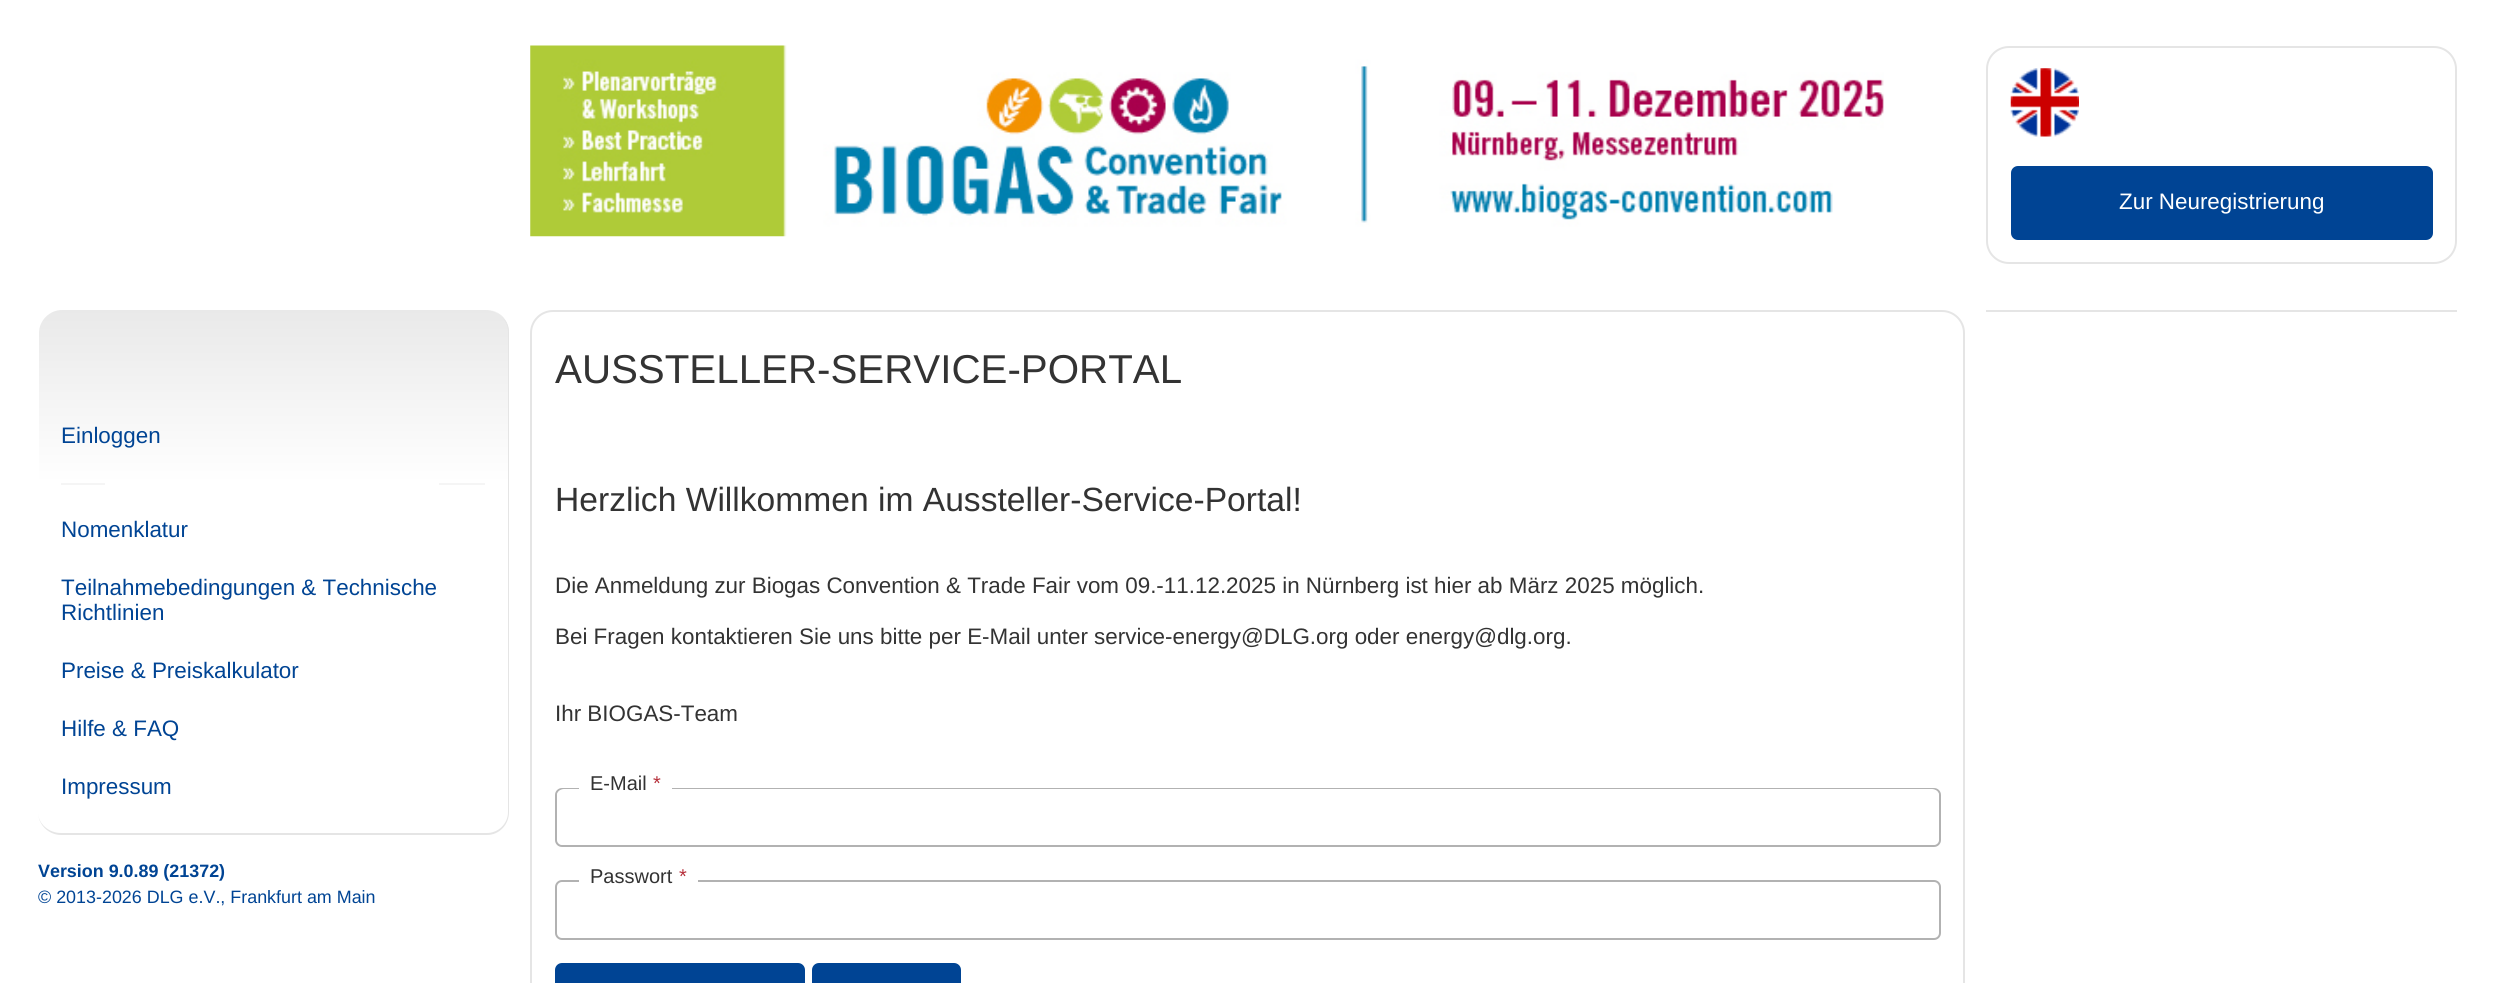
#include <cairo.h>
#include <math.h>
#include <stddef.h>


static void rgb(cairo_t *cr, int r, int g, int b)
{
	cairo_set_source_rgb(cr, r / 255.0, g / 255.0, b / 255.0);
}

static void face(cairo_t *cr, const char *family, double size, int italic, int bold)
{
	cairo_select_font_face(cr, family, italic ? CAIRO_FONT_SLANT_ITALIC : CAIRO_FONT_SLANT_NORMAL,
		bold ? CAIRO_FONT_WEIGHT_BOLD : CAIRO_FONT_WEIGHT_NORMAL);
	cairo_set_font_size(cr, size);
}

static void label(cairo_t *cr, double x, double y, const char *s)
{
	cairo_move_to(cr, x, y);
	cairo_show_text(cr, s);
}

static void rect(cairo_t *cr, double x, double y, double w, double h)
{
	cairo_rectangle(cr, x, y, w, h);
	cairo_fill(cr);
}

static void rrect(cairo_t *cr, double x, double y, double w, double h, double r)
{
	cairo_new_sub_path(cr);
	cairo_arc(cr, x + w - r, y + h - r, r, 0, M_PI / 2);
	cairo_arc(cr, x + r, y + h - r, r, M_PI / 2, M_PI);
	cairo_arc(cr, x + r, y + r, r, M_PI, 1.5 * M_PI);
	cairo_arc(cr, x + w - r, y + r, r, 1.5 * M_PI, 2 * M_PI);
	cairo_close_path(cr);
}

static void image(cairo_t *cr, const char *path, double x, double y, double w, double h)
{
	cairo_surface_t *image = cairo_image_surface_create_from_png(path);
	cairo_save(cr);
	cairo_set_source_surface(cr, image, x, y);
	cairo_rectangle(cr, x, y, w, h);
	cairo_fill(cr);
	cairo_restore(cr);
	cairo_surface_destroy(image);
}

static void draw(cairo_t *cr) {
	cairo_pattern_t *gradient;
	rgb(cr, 255, 255, 255);
	cairo_paint(cr);
	image(cr, "image0.png", 530, 45, 1354, 192);
	rrect(cr, 1987, 47, 469, 216, 22);
	rgb(cr, 229, 229, 229);
	cairo_stroke(cr);
	image(cr, "image1.png", 2010, 68, 69, 69);
	rgb(cr, 0, 68, 148);
	rrect(cr, 2012, 167, 420, 72, 6);
	cairo_fill_preserve(cr);
	cairo_stroke(cr);
	face(cr, "Liberation Sans", 22.4, 0, 0);
	rgb(cr, 255, 255, 255);
	label(cr, 2119, 209, "Zur Neuregistrierung");
	rgb(cr, 229, 229, 229);
	rect(cr, 1986, 310, 471, 2);
	cairo_save(cr);
	rrect(cr, 39, 310, 470, 525, 23);
	cairo_clip(cr);
	gradient = cairo_pattern_create_linear(273, 310, 273, 833);
	cairo_pattern_add_color_stop_rgba(gradient, 0, 0.914, 0.914, 0.914, 1);
	cairo_pattern_add_color_stop_rgba(gradient, 0.33, 1, 1, 1, 1);
	cairo_set_source(cr, gradient);
	cairo_pattern_destroy(gradient);
	cairo_new_path(cr);
	cairo_move_to(cr, 62, 310);
	cairo_line_to(cr, 486, 310);
	cairo_curve_to(cr, 498.5, 310, 509, 320.5, 509, 333);
	cairo_line_to(cr, 509, 833);
	cairo_line_to(cr, 39, 833);
	cairo_line_to(cr, 39, 333);
	cairo_curve_to(cr, 39, 320.5, 49.5, 310, 62, 310);
	cairo_close_path(cr);
	cairo_fill(cr);
	cairo_restore(cr);
	cairo_set_fill_rule(cr, CAIRO_FILL_RULE_EVEN_ODD);
	cairo_new_path(cr);
	cairo_move_to(cr, 61, 310);
	cairo_line_to(cr, 487, 310);
	cairo_curve_to(cr, 499, 310, 509, 320, 509, 332);
	cairo_line_to(cr, 509, 812);
	cairo_curve_to(cr, 509, 825, 499, 835, 487, 835);
	cairo_line_to(cr, 61, 835);
	cairo_curve_to(cr, 49, 835, 38, 825, 38, 812);
	cairo_line_to(cr, 38, 332);
	cairo_curve_to(cr, 38, 320, 49, 310, 61, 310);
	cairo_close_path(cr);
	cairo_move_to(cr, 61, 310);
	cairo_line_to(cr, 487, 310);
	cairo_curve_to(cr, 498, 310, 508, 320, 508, 332);
	cairo_line_to(cr, 508, 812);
	cairo_curve_to(cr, 508, 824, 498, 833, 487, 833);
	cairo_line_to(cr, 61, 833);
	cairo_curve_to(cr, 49, 833, 38, 824, 38, 812);
	cairo_line_to(cr, 38, 332);
	cairo_curve_to(cr, 38, 320, 49, 310, 61, 310);
	cairo_close_path(cr);
	cairo_fill(cr);
	rgb(cr, 0, 68, 148);
	label(cr, 61, 443, "Einloggen");
	rgb(cr, 245, 245, 245);
	rect(cr, 61, 483, 44, 2);
	rect(cr, 439, 483, 46, 2);
	rgb(cr, 0, 68, 148);
	label(cr, 61, 537, "Nomenklatur");
	label(cr, 61, 595, "Teilnahmebedingungen & Technische");
	label(cr, 61, 620, "Richtlinien");
	label(cr, 61, 678, "Preise & Preiskalkulator");
	label(cr, 61, 736, "Hilfe & FAQ");
	label(cr, 61, 794, "Impressum");
	face(cr, "Liberation Sans", 17.9, 0, 1);
	label(cr, 38, 877, "Version 9.0.89 (21372)");
	face(cr, "Liberation Sans", 17.9, 0, 0);
	label(cr, 38, 903, "© 2013-2026 DLG e.V., Frankfurt am Main");
	rrect(cr, 531, 311, 1433, 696, 22);
	rgb(cr, 229, 229, 229);
	cairo_stroke(cr);
	face(cr, "Liberation Sans", 40.3, 0, 0);
	rgb(cr, 51, 51, 51);
	label(cr, 555, 383, "AUSSTELLER-SERVICE-PORTAL");
	face(cr, "Liberation Sans", 33.6, 0, 0);
	label(cr, 555, 511, "Herzlich Willkommen im Aussteller-Service-Portal!");
	face(cr, "Liberation Sans", 22.4, 0, 0);
	label(cr, 555, 593, "Die Anmeldung zur Biogas Convention & Trade Fair vom 09.-11.12.2025 in Nürnberg ist hier ab März 2025 möglich.");
	label(cr, 555, 644, "Bei Fragen kontaktieren Sie uns bitte per E-Mail unter service-energy@DLG.org oder energy@dlg.org.");
	label(cr, 555, 721, "Ihr BIOGAS-Team");
	rrect(cr, 556, 789, 1384, 57, 6);
	rgb(cr, 178, 178, 178);
	cairo_stroke(cr);
	rgb(cr, 255, 255, 255);
	rect(cr, 579, 788, 93, 1);
	rrect(cr, 557, 789, 1382, 56, 7);
	cairo_fill(cr);
	face(cr, "Liberation Sans", 20, 0, 0);
	rgb(cr, 51, 51, 51);
	label(cr, 590, 790, "E-Mail");
	rgb(cr, 182, 47, 58);
	label(cr, 653, 790, "*");
	rrect(cr, 556, 881, 1384, 58, 6);
	rgb(cr, 178, 178, 178);
	cairo_stroke(cr);
	rgb(cr, 255, 255, 255);
	rect(cr, 579, 880, 119, 2);
	rgb(cr, 51, 51, 51);
	label(cr, 590, 883, "Passwort");
	rgb(cr, 182, 47, 58);
	label(cr, 679, 883, "*");
	rgb(cr, 0, 68, 148);
	rrect(cr, 556, 964, 248, 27, 6);
	cairo_fill_preserve(cr);
	cairo_stroke(cr);
	rrect(cr, 813, 964, 147, 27, 6);
	cairo_fill_preserve(cr);
	cairo_stroke(cr);
}

int main(void) {
	cairo_surface_t *surface = cairo_image_surface_create(CAIRO_FORMAT_RGB24, 2495, 983);
	cairo_t *cr = cairo_create(surface);
	cairo_font_options_t *options = cairo_font_options_create();
	cairo_font_options_set_hint_metrics(options, CAIRO_HINT_METRICS_OFF);
	cairo_font_options_set_hint_style(options, CAIRO_HINT_STYLE_NONE);
	cairo_set_font_options(cr, options);
	cairo_set_miter_limit(cr, 4);
	draw(cr);
	cairo_surface_write_to_png(surface, "render.png");
	cairo_font_options_destroy(options);
	cairo_destroy(cr);
	cairo_surface_destroy(surface);
	return 0;
}
